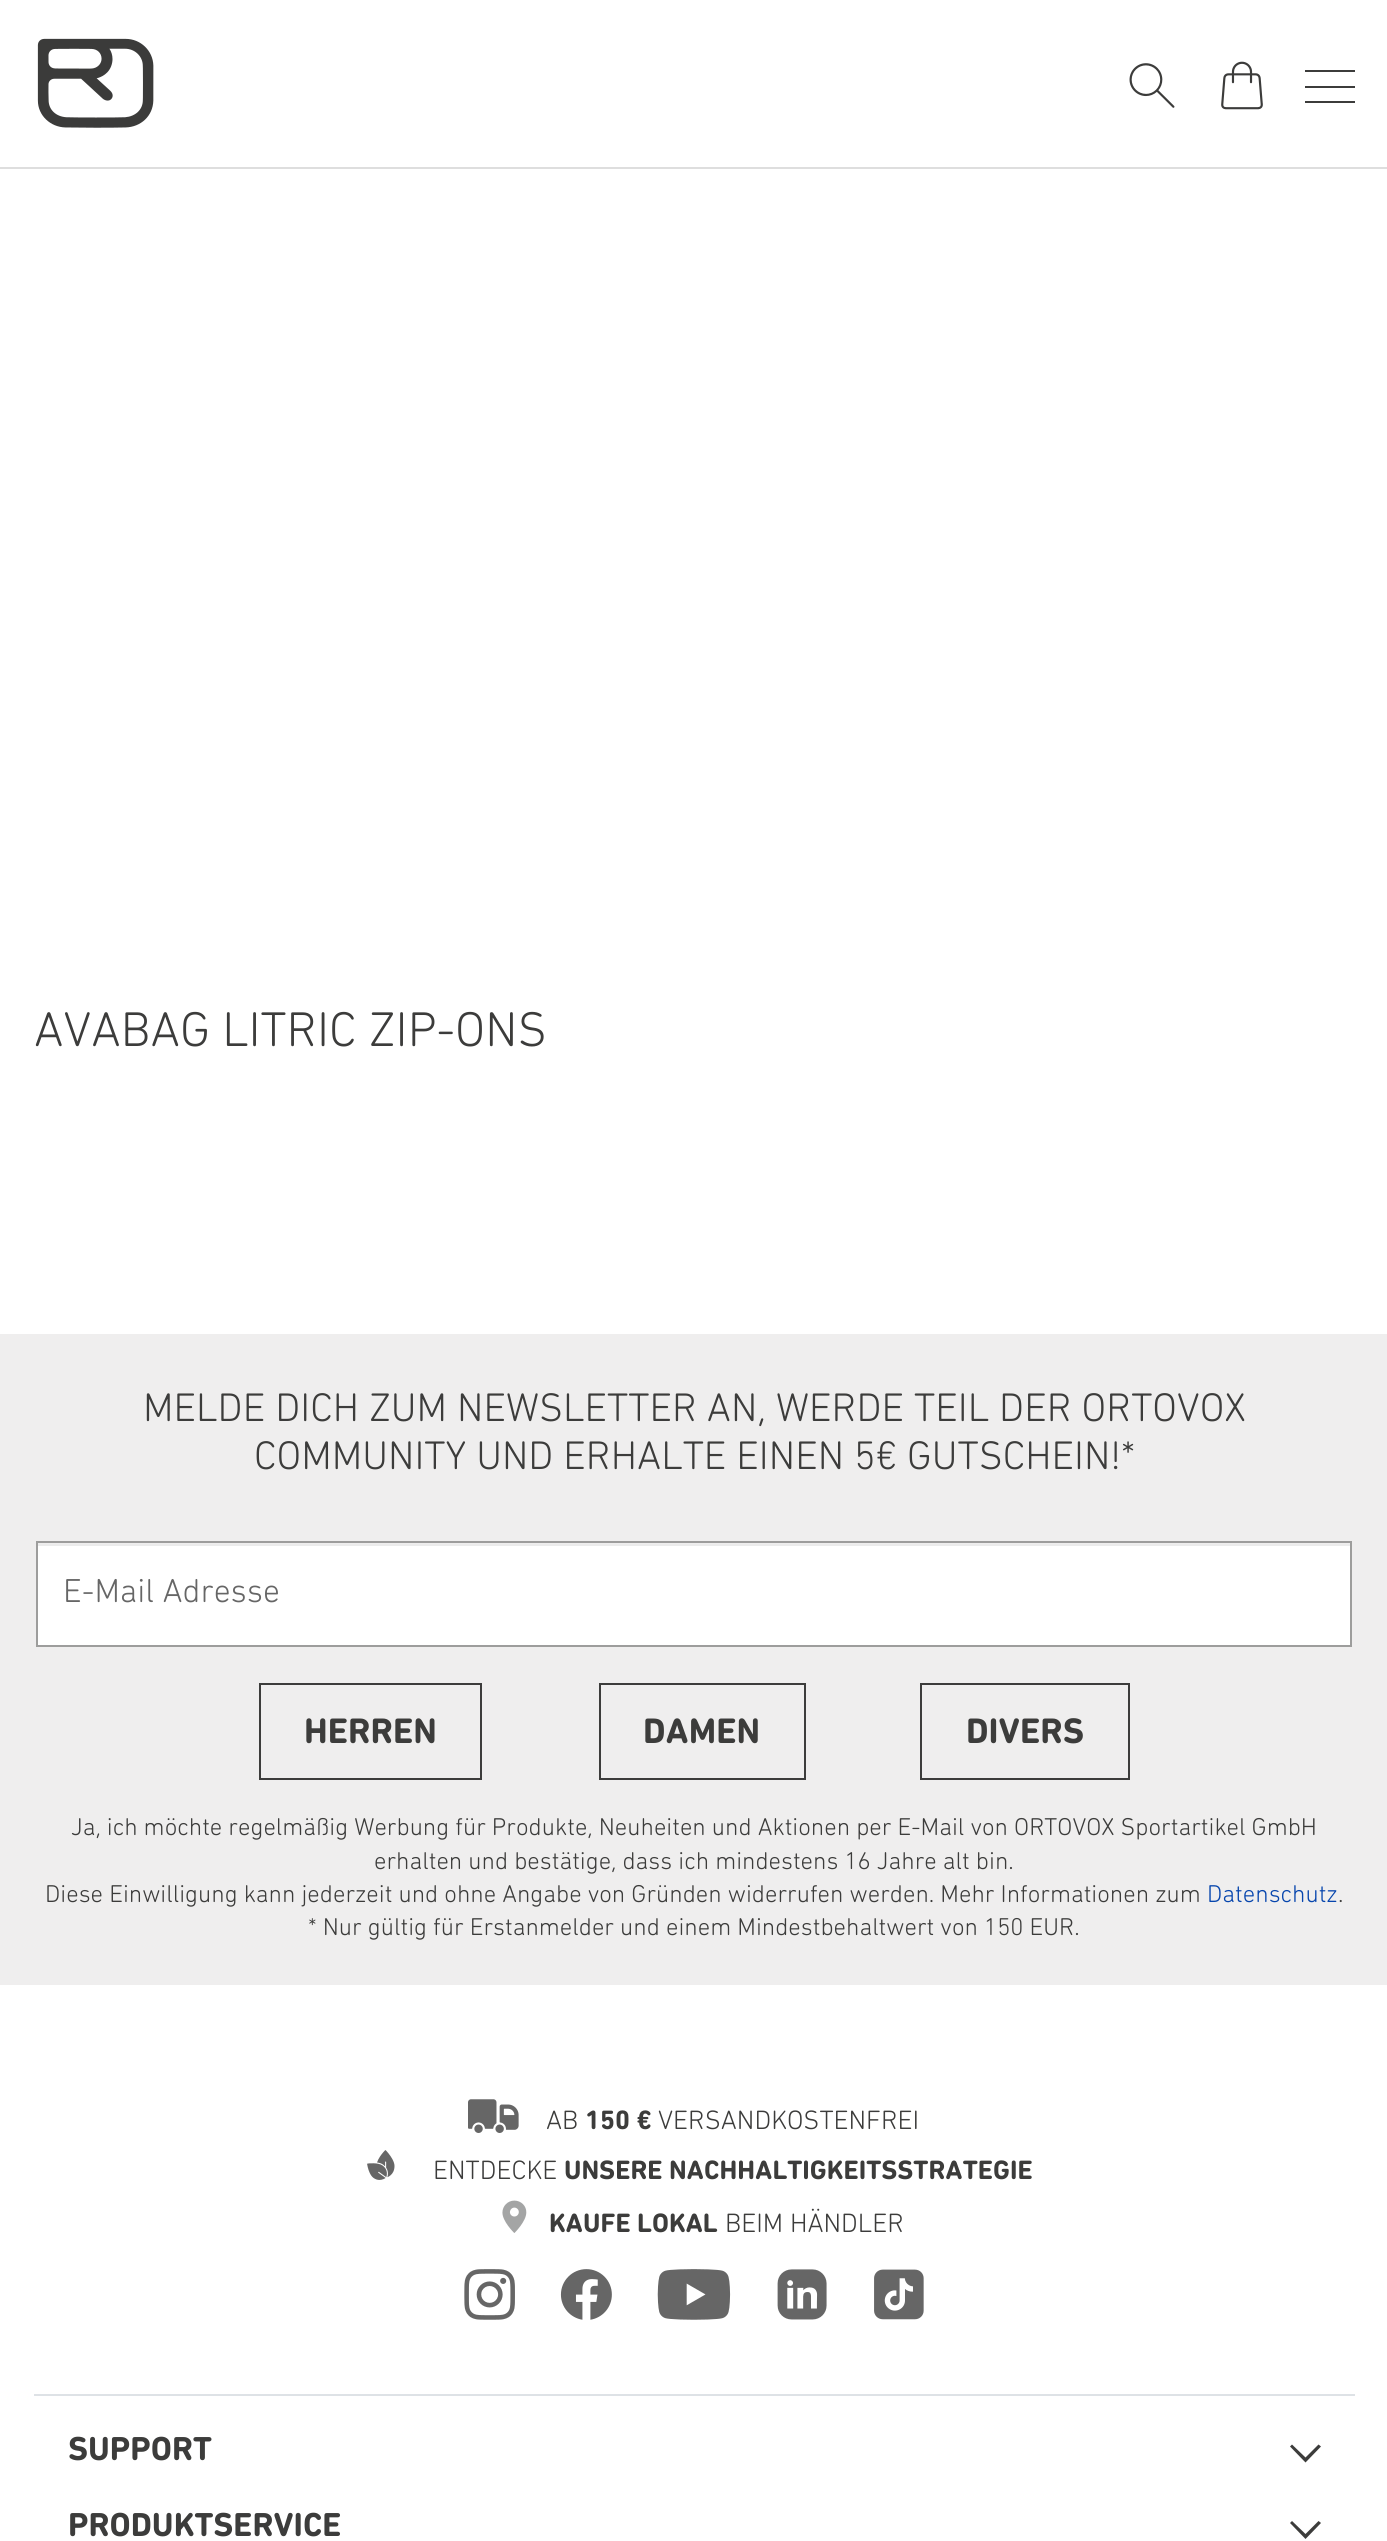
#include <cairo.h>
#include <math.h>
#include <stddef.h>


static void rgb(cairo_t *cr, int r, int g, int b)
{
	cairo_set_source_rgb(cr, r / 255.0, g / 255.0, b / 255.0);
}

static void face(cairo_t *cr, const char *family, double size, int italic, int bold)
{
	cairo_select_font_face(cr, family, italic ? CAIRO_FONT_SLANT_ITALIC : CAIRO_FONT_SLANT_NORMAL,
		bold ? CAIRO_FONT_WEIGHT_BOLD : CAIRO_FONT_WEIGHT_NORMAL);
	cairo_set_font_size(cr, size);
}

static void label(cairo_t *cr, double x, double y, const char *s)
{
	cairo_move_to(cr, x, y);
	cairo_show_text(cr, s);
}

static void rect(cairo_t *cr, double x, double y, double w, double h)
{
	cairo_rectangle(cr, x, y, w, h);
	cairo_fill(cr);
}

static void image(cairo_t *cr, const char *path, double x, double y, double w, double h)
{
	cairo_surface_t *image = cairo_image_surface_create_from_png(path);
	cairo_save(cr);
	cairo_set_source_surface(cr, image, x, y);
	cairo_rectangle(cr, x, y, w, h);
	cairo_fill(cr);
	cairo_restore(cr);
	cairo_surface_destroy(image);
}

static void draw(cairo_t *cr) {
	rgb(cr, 255, 255, 255);
	cairo_paint(cr);
	rgb(cr, 222, 222, 222);
	rect(cr, 0, 167, 1387, 2);
	image(cr, "image0.png", 37, 38, 117, 90);
	image(cr, "image1.png", 1129, 63, 46, 45);
	image(cr, "image2.png", 1221, 61, 42, 49);
	rgb(cr, 60, 60, 59);
	rect(cr, 1305, 70, 50, 2);
	rect(cr, 1305, 86, 50, 2);
	rect(cr, 1305, 101, 50, 2);
	face(cr, "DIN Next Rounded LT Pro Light", 49.5, 0, 0);
	label(cr, 34, 1046, "AVABAG LITRIC ZIP-ONS");
	rgb(cr, 239, 238, 238);
	rect(cr, 0, 1334, 1387, 651);
	face(cr, "DIN Next Rounded LT Pro Light", 40.5, 0, 0);
	rgb(cr, 60, 60, 59);
	label(cr, 143, 1421, "MELDE DICH ZUM NEWSLETTER AN, WERDE TEIL DER ORTOVOX");
	label(cr, 254, 1469, "COMMUNITY UND ERHALTE EINEN 5€ GUTSCHEIN!*");
	rgb(cr, 255, 255, 255);
	rect(cr, 38, 1546, 1312, 99);
	rgb(cr, 236, 236, 236);
	rect(cr, 38, 1544, 1312, 2);
	cairo_rectangle(cr, 37, 1542, 1314, 104);
	rgb(cr, 157, 157, 156);
	cairo_stroke(cr);
	face(cr, "DIN Next Rounded LT Pro Light", 33.75, 0, 0);
	rgb(cr, 102, 102, 102);
	label(cr, 63, 1602, "E-Mail Adresse");
	cairo_rectangle(cr, 260, 1684, 221, 95);
	rgb(cr, 60, 60, 59);
	cairo_stroke(cr);
	face(cr, "DIN Next Rounded LT Pro", 36, 0, 1);
	label(cr, 304, 1743, "HERREN");
	cairo_rectangle(cr, 600, 1684, 205, 95);
	cairo_stroke(cr);
	label(cr, 643, 1743, "DAMEN");
	cairo_rectangle(cr, 921, 1684, 208, 95);
	cairo_stroke(cr);
	label(cr, 966, 1743, "DIVERS");
	face(cr, "DIN Next Rounded LT Pro Light", 24.75, 0, 0);
	label(cr, 71, 1835, "Ja, ich möchte regelmäßig Werbung für Produkte, Neuheiten und Aktionen per E-Mail von ORTOVOX Sportartikel GmbH");
	label(cr, 374, 1869, "erhalten und bestätige, dass ich mindestens 16 Jahre alt bin.");
	label(cr, 45, 1902, "Diese Einwilligung kann jederzeit und ohne Angabe von Gründen widerrufen werden. Mehr Informationen zum");
	rgb(cr, 6, 69, 173);
	label(cr, 1207, 1902, "Datenschutz");
	rgb(cr, 60, 60, 59);
	label(cr, 1338, 1902, ".");
	label(cr, 308, 1935, "* Nur gültig für Erstanmelder und einem Mindestbehaltwert von 150 EUR.");
	rgb(cr, 222, 226, 230);
	rect(cr, 34, 2394, 1321, 2);
	image(cr, "image3.png", 468, 2099, 51, 34);
	face(cr, "DIN Next Rounded LT Pro Light", 27, 0, 0);
	rgb(cr, 60, 60, 59);
	label(cr, 546, 2129, "AB");
	face(cr, "DIN Next Rounded LT Pro", 27, 0, 1);
	label(cr, 585, 2129, "150 €");
	face(cr, "DIN Next Rounded LT Pro Light", 27, 0, 0);
	label(cr, 658, 2129, "VERSANDKOSTENFREI");
	image(cr, "image4.png", 367, 2150, 28, 30);
	label(cr, 433, 2179, "ENTDECKE");
	face(cr, "DIN Next Rounded LT Pro", 27, 0, 1);
	label(cr, 564, 2179, "UNSERE NACHHALTIGKEITSSTRATEGIE");
	image(cr, "image5.png", 502, 2200, 25, 33);
	label(cr, 549, 2232, "KAUFE LOKAL");
	face(cr, "DIN Next Rounded LT Pro Light", 27, 0, 0);
	label(cr, 725, 2232, "BEIM HÄNDLER");
	image(cr, "image6.png", 464, 2269, 51, 51);
	image(cr, "image7.png", 560, 2269, 52, 51);
	image(cr, "image8.png", 657, 2269, 74, 51);
	image(cr, "image9.png", 777, 2269, 50, 51);
	image(cr, "image10.png", 874, 2269, 50, 51);
	face(cr, "DIN Next Rounded LT Pro", 33.75, 0, 1);
	label(cr, 68, 2460, "SUPPORT");
	cairo_new_path(cr);
	cairo_move_to(cr, 1305.5, 2462.5);
	cairo_line_to(cr, 1321, 2446.5);
	cairo_line_to(cr, 1318.5, 2444.5);
	cairo_line_to(cr, 1305.5, 2457.5);
	cairo_line_to(cr, 1292, 2444.5);
	cairo_line_to(cr, 1290, 2446.5);
	cairo_close_path(cr);
	cairo_fill(cr);
	label(cr, 68, 2536, "PRODUKTSERVICE");
	cairo_new_path(cr);
	cairo_move_to(cr, 1305.5, 2539);
	cairo_line_to(cr, 1321, 2523);
	cairo_line_to(cr, 1318.5, 2521);
	cairo_line_to(cr, 1305.5, 2534);
	cairo_line_to(cr, 1292, 2521);
	cairo_line_to(cr, 1290, 2523);
	cairo_close_path(cr);
	cairo_fill(cr);
}

int main(void) {
	cairo_surface_t *surface = cairo_image_surface_create(CAIRO_FORMAT_RGB24, 1387, 2541);
	cairo_t *cr = cairo_create(surface);
	cairo_font_options_t *options = cairo_font_options_create();
	cairo_font_options_set_hint_metrics(options, CAIRO_HINT_METRICS_OFF);
	cairo_font_options_set_hint_style(options, CAIRO_HINT_STYLE_NONE);
	cairo_set_font_options(cr, options);
	cairo_set_miter_limit(cr, 4);
	draw(cr);
	cairo_surface_write_to_png(surface, "render.png");
	cairo_font_options_destroy(options);
	cairo_destroy(cr);
	cairo_surface_destroy(surface);
	return 0;
}
